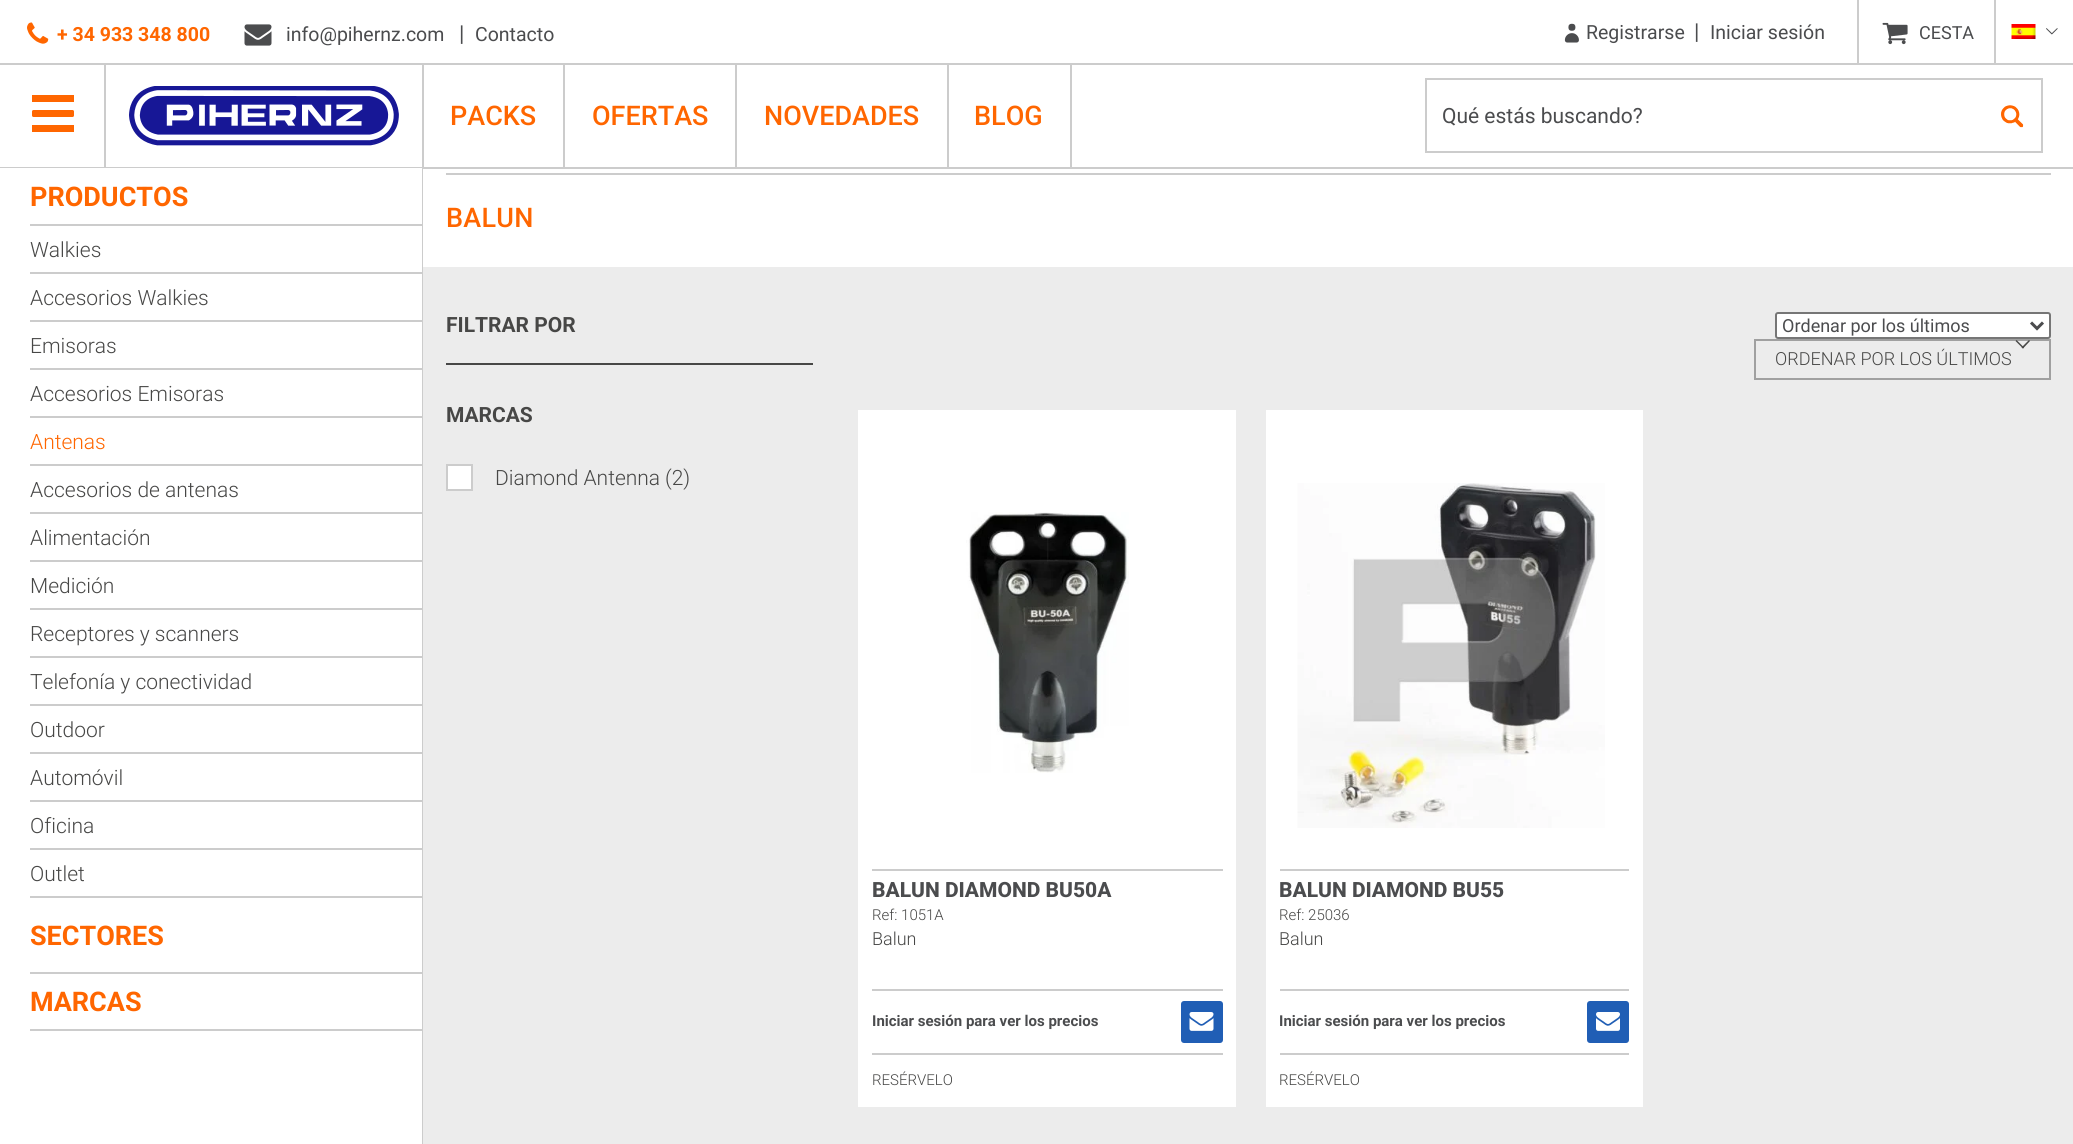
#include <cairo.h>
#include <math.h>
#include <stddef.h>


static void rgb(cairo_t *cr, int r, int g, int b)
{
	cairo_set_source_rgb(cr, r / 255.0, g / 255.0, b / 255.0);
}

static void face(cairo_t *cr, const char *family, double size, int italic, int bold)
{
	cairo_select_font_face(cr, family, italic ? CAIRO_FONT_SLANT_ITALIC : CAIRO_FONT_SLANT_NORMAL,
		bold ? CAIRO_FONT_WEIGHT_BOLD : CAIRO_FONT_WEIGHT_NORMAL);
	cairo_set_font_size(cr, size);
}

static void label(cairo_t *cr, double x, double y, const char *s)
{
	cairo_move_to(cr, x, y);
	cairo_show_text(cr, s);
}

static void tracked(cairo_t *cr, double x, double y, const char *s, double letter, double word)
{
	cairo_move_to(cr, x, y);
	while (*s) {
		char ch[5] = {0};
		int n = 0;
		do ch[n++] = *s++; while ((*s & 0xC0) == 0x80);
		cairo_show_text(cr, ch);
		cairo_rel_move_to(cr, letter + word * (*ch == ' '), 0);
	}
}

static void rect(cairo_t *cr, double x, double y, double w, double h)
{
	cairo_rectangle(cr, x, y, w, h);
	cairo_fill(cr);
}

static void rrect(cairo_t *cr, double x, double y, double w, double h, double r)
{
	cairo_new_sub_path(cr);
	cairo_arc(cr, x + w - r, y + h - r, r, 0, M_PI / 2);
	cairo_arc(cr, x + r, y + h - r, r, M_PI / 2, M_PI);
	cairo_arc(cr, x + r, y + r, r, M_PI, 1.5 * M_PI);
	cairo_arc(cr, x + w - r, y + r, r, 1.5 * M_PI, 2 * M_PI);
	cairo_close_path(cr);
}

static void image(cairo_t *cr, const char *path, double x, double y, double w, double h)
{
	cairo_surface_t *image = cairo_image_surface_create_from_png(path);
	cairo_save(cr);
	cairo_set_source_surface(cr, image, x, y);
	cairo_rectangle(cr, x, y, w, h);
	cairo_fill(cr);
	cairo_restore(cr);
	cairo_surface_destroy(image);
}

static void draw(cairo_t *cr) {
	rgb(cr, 255, 255, 255);
	cairo_paint(cr);
	rgb(cr, 204, 204, 204);
	rect(cr, 0, 167, 2073, 2);
	rect(cr, 0, 63, 2073, 2);
	image(cr, "image0.png", 27, 22, 22, 22);
	face(cr, "Roboto", 19.5, 0, 1);
	rgb(cr, 255, 102, 0);
	label(cr, 57, 41, "+ 34 933 348 800");
	image(cr, "image1.png", 244, 24, 28, 22);
	face(cr, "Roboto", 19.5, 0, 0);
	rgb(cr, 75, 76, 78);
	label(cr, 286, 41, "info@pihernz.com");
	face(cr, "Roboto", 22, 0, 0);
	label(cr, 459, 41, "|");
	face(cr, "Roboto", 19.5, 0, 0);
	label(cr, 475, 41, "Contacto");
	image(cr, "image2.png", 1564, 23, 15, 20);
	label(cr, 1586, 39, "Registrarse");
	face(cr, "Roboto", 22, 0, 0);
	label(cr, 1694, 39, "|");
	face(cr, "Roboto", 19.5, 0, 0);
	label(cr, 1710, 39, "Iniciar sesión");
	rgb(cr, 204, 204, 204);
	rect(cr, 1857, 0, 2, 63);
	image(cr, "image3.png", 1882, 22, 26, 23);
	face(cr, "Roboto", 18, 0, 0);
	rgb(cr, 75, 76, 78);
	label(cr, 1919, 39, "CESTA");
	rgb(cr, 204, 204, 204);
	rect(cr, 1994, 0, 2, 63);
	image(cr, "image4.png", 2011, 24, 25, 15);
	image(cr, "image5.png", 2046, 28, 12, 7);
	rect(cr, 104, 65, 2, 102);
	rgb(cr, 255, 102, 0);
	rrect(cr, 32, 110, 42, 7, 1.5);
	cairo_fill(cr);
	rect(cr, 32, 95, 42, 7);
	rect(cr, 32, 125, 42, 7);
	image(cr, "image6.png", 129, 86, 270, 60);
	rgb(cr, 204, 204, 204);
	rect(cr, 422, 65, 2, 102);
	rect(cr, 563, 65, 2, 102);
	face(cr, "Roboto Medium", 27, 0, 0);
	rgb(cr, 255, 102, 0);
	label(cr, 450, 125, "PACKS");
	rgb(cr, 204, 204, 204);
	rect(cr, 735, 65, 2, 102);
	rgb(cr, 255, 102, 0);
	label(cr, 592, 125, "OFERTAS");
	rgb(cr, 204, 204, 204);
	rect(cr, 947, 65, 2, 102);
	rgb(cr, 255, 102, 0);
	label(cr, 764, 125, "NOVEDADES");
	rgb(cr, 204, 204, 204);
	rect(cr, 1070, 65, 2, 102);
	rgb(cr, 255, 102, 0);
	label(cr, 974, 125, "BLOG");
	cairo_rectangle(cr, 1426, 79, 616, 73);
	rgb(cr, 204, 204, 204);
	cairo_stroke(cr);
	face(cr, "Roboto", 21, 0, 0);
	rgb(cr, 75, 76, 78);
	label(cr, 1442, 123, "Qué estás buscando?");
	image(cr, "image7.png", 2001, 105, 23, 23);
	rgb(cr, 255, 255, 255);
	rect(cr, 0, 168, 422, 1);
	rgb(cr, 204, 204, 204);
	rect(cr, 422, 168, 1, 976);
	rect(cr, 30, 224, 392, 2);
	face(cr, "Roboto", 27, 0, 1);
	rgb(cr, 255, 102, 0);
	label(cr, 30, 206, "PRODUCTOS");
	rgb(cr, 204, 204, 204);
	rect(cr, 30, 272, 392, 2);
	face(cr, "Roboto Light", 21, 0, 0);
	rgb(cr, 71, 71, 70);
	label(cr, 30, 257, "Walkies");
	rgb(cr, 204, 204, 204);
	rect(cr, 30, 320, 392, 2);
	rgb(cr, 71, 71, 70);
	label(cr, 30, 305, "Accesorios Walkies");
	rgb(cr, 204, 204, 204);
	rect(cr, 30, 368, 392, 2);
	rgb(cr, 71, 71, 70);
	label(cr, 30, 353, "Emisoras");
	rgb(cr, 204, 204, 204);
	rect(cr, 30, 416, 392, 2);
	rgb(cr, 71, 71, 70);
	label(cr, 30, 401, "Accesorios Emisoras");
	rgb(cr, 204, 204, 204);
	rect(cr, 30, 464, 392, 2);
	rgb(cr, 255, 102, 0);
	label(cr, 30, 449, "Antenas");
	rgb(cr, 204, 204, 204);
	rect(cr, 30, 512, 392, 2);
	rgb(cr, 71, 71, 70);
	label(cr, 30, 497, "Accesorios de antenas");
	rgb(cr, 204, 204, 204);
	rect(cr, 30, 560, 392, 2);
	rgb(cr, 71, 71, 70);
	label(cr, 30, 545, "Alimentación");
	rgb(cr, 204, 204, 204);
	rect(cr, 30, 608, 392, 2);
	rgb(cr, 71, 71, 70);
	label(cr, 30, 593, "Medición");
	rgb(cr, 204, 204, 204);
	rect(cr, 30, 656, 392, 2);
	rgb(cr, 71, 71, 70);
	label(cr, 30, 641, "Receptores y scanners");
	rgb(cr, 204, 204, 204);
	rect(cr, 30, 704, 392, 2);
	rgb(cr, 71, 71, 70);
	label(cr, 30, 689, "Telefonía y conectividad");
	rgb(cr, 204, 204, 204);
	rect(cr, 30, 752, 392, 2);
	rgb(cr, 71, 71, 70);
	label(cr, 30, 737, "Outdoor");
	rgb(cr, 204, 204, 204);
	rect(cr, 30, 800, 392, 2);
	rgb(cr, 71, 71, 70);
	label(cr, 30, 785, "Automóvil");
	rgb(cr, 204, 204, 204);
	rect(cr, 30, 848, 392, 2);
	rgb(cr, 71, 71, 70);
	label(cr, 30, 833, "Oficina");
	rgb(cr, 204, 204, 204);
	rect(cr, 30, 896, 392, 2);
	rgb(cr, 71, 71, 70);
	label(cr, 30, 881, "Outlet");
	rgb(cr, 204, 204, 204);
	rect(cr, 30, 972, 392, 2);
	face(cr, "Roboto", 27, 0, 1);
	rgb(cr, 255, 102, 0);
	label(cr, 30, 945, "SECTORES");
	rgb(cr, 204, 204, 204);
	rect(cr, 30, 1029, 392, 2);
	rgb(cr, 255, 102, 0);
	label(cr, 30, 1011, "MARCAS");
	rgb(cr, 204, 204, 204);
	rect(cr, 446, 173, 1605, 2);
	face(cr, "Roboto Medium", 27, 0, 0);
	rgb(cr, 255, 102, 0);
	tracked(cr, 446, 227, "BALUN", 0.25, 0);
	rgb(cr, 236, 236, 236);
	rect(cr, 423, 267, 1650, 877);
	rgb(cr, 71, 71, 70);
	rect(cr, 446, 363, 367, 2);
	face(cr, "Roboto", 21, 0, 1);
	label(cr, 446, 332, "FILTRAR POR");
	label(cr, 446, 422, "MARCAS");
	rgb(cr, 255, 255, 255);
	cairo_rectangle(cr, 447, 465, 25, 25);
	cairo_fill_preserve(cr);
	rgb(cr, 204, 204, 204);
	cairo_stroke(cr);
	face(cr, "Roboto Light", 21, 0, 0);
	rgb(cr, 71, 71, 70);
	label(cr, 495, 485, "Diamond Antenna");
	label(cr, 665, 485, "(2)");
	rgb(cr, 255, 255, 255);
	rrect(cr, 1776, 313, 274, 25, 2);
	cairo_fill_preserve(cr);
	rgb(cr, 118, 118, 118);
	cairo_stroke(cr);
	cairo_new_path(cr);
	cairo_move_to(cr, 2031, 322.5);
	cairo_line_to(cr, 2037, 328.5);
	cairo_line_to(cr, 2043, 322.5);
	rgb(cr, 75, 76, 78);
	cairo_set_line_width(cr, 3);
	cairo_stroke(cr);
	face(cr, "Roboto", 18, 0, 0);
	label(cr, 1782, 332, "Ordenar por los últimos");
	cairo_rectangle(cr, 1755, 340, 295, 39);
	rgb(cr, 160, 160, 160);
	cairo_set_line_width(cr, 2);
	cairo_stroke(cr);
	rgb(cr, 71, 71, 70);
	cairo_new_path(cr);
	cairo_move_to(cr, 2029, 340);
	cairo_line_to(cr, 2030, 341);
	cairo_line_to(cr, 2023, 348.5);
	cairo_line_to(cr, 2021.5, 347.5);
	cairo_close_path(cr);
	cairo_fill(cr);
	cairo_new_path(cr);
	cairo_move_to(cr, 2016.5, 340);
	cairo_line_to(cr, 2024, 347.5);
	cairo_line_to(cr, 2023, 348.5);
	cairo_line_to(cr, 2015.5, 341);
	cairo_close_path(cr);
	cairo_fill(cr);
	face(cr, "Roboto Light", 18, 0, 0);
	label(cr, 1775, 365, "ORDENAR POR LOS ÚLTIMOS");
	rgb(cr, 255, 255, 255);
	rect(cr, 858, 410, 378, 697);
	image(cr, "image8.png", 966, 512, 163, 261);
	rgb(cr, 204, 204, 204);
	rect(cr, 872, 869, 351, 2);
	face(cr, "Roboto ExtraBold", 21, 0, 0);
	rgb(cr, 75, 76, 78);
	label(cr, 872, 897, "BALUN DIAMOND BU50A");
	face(cr, "Roboto Light", 15, 0, 0);
	rgb(cr, 71, 71, 70);
	label(cr, 872, 920, "Ref: 1051A");
	face(cr, "Roboto Light", 18, 0, 0);
	label(cr, 872, 945, "Balun");
	rgb(cr, 204, 204, 204);
	rect(cr, 872, 989, 351, 2);
	face(cr, "Roboto", 15, 0, 1);
	rgb(cr, 75, 76, 78);
	label(cr, 872, 1026, "Iniciar sesión para ver los precios");
	rgb(cr, 32, 94, 181);
	rrect(cr, 1181, 1001, 42, 42, 3);
	cairo_fill(cr);
	image(cr, "image9.png", 1189, 1012, 25, 19);
	rgb(cr, 204, 204, 204);
	rect(cr, 872, 1053, 351, 2);
	face(cr, "Roboto Light", 15, 0, 0);
	rgb(cr, 71, 71, 70);
	label(cr, 872, 1085, "RESÉRVELO");
	rgb(cr, 255, 255, 255);
	rect(cr, 1266, 410, 377, 697);
	image(cr, "image10.png", 1297, 483, 308, 345);
	rgb(cr, 204, 204, 204);
	rect(cr, 1280, 869, 349, 2);
	face(cr, "Roboto ExtraBold", 21, 0, 0);
	rgb(cr, 75, 76, 78);
	label(cr, 1279, 897, "BALUN DIAMOND BU55");
	face(cr, "Roboto Light", 15, 0, 0);
	rgb(cr, 71, 71, 70);
	label(cr, 1279, 920, "Ref: 25036");
	face(cr, "Roboto Light", 18, 0, 0);
	label(cr, 1279, 945, "Balun");
	rgb(cr, 204, 204, 204);
	rect(cr, 1280, 989, 349, 2);
	face(cr, "Roboto", 15, 0, 1);
	rgb(cr, 75, 76, 78);
	label(cr, 1279, 1026, "Iniciar sesión para ver los precios");
	rgb(cr, 32, 94, 181);
	rrect(cr, 1587, 1001, 42, 42, 3);
	cairo_fill(cr);
	image(cr, "image11.png", 1596, 1012, 24, 19);
	rgb(cr, 204, 204, 204);
	rect(cr, 1280, 1053, 349, 2);
	face(cr, "Roboto Light", 15, 0, 0);
	rgb(cr, 71, 71, 70);
	label(cr, 1279, 1085, "RESÉRVELO");
}

int main(void) {
	cairo_surface_t *surface = cairo_image_surface_create(CAIRO_FORMAT_RGB24, 2073, 1144);
	cairo_t *cr = cairo_create(surface);
	cairo_font_options_t *options = cairo_font_options_create();
	cairo_font_options_set_hint_metrics(options, CAIRO_HINT_METRICS_OFF);
	cairo_font_options_set_hint_style(options, CAIRO_HINT_STYLE_NONE);
	cairo_set_font_options(cr, options);
	cairo_set_miter_limit(cr, 4);
	draw(cr);
	cairo_surface_write_to_png(surface, "render.png");
	cairo_font_options_destroy(options);
	cairo_destroy(cr);
	cairo_surface_destroy(surface);
	return 0;
}
